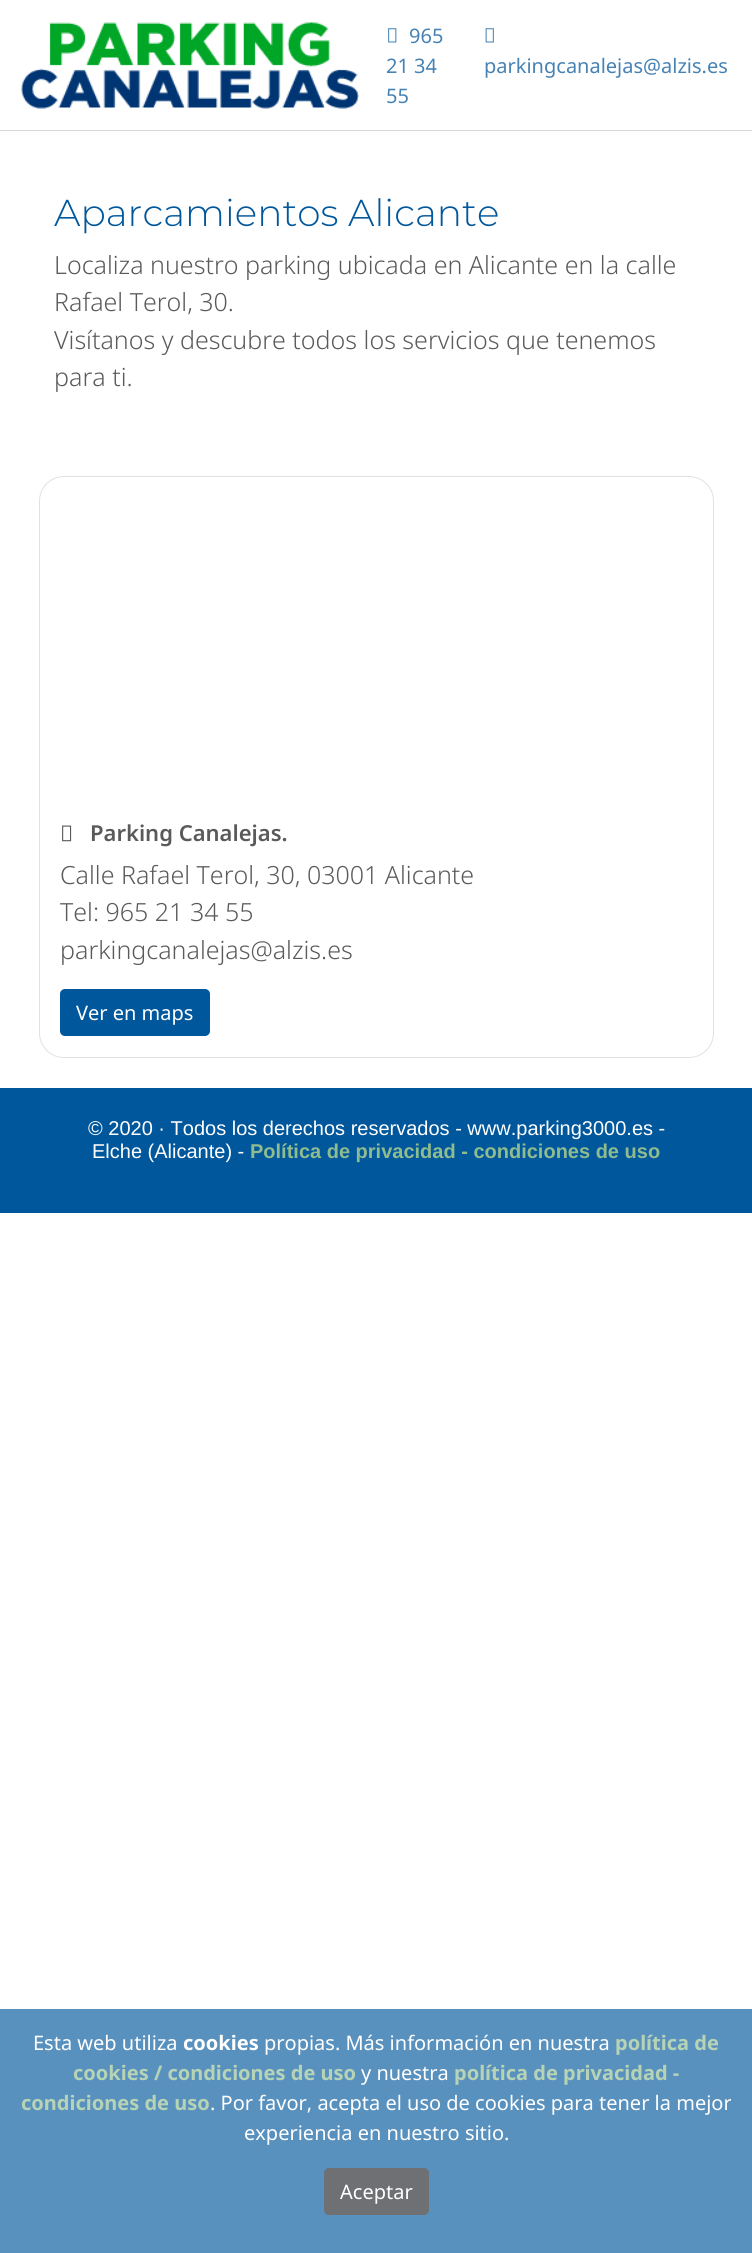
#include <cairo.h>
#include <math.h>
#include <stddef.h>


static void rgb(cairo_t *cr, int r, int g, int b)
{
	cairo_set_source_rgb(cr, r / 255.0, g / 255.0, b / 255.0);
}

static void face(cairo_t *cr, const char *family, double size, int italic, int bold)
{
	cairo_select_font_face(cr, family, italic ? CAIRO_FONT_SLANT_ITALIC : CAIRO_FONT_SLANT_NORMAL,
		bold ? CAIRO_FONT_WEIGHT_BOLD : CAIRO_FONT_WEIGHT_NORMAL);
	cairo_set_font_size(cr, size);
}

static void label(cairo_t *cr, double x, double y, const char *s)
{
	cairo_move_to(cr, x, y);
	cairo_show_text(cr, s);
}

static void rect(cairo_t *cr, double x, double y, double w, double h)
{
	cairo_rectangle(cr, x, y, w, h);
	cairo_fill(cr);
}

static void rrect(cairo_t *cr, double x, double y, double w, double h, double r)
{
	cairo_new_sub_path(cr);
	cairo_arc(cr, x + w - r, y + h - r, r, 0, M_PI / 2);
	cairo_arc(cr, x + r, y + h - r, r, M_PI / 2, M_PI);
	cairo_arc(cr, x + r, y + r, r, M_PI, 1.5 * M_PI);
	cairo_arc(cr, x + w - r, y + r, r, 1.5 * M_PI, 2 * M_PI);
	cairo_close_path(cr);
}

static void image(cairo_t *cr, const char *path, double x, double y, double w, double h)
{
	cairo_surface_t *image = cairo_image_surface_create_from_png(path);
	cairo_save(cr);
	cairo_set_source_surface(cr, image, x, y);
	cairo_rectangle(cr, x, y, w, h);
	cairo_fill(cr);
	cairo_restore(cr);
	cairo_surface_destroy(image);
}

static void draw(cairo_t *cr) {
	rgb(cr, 255, 255, 255);
	cairo_paint(cr);
	image(cr, "image0.png", 21, 22, 338, 87);
	image(cr, "image1.png", 388, 28, 9, 15);
	face(cr, "Noto Sans", 20, 0, 0);
	rgb(cr, 70, 130, 180);
	label(cr, 409, 43, "965");
	label(cr, 386, 73, "21 34");
	label(cr, 386, 103, "55");
	image(cr, "image2.png", 485, 28, 9, 15);
	label(cr, 484, 73, "parkingcanalejas@alzis.es");
	rgb(cr, 214, 214, 214);
	rect(cr, 0, 130, 752, 1);
	face(cr, "Montserrat Light", 37.5, 0, 0);
	rgb(cr, 1, 87, 155);
	label(cr, 54, 226, "Aparcamientos Alicante");
	face(cr, "Noto Sans Light", 25, 0, 0);
	rgb(cr, 90, 90, 90);
	label(cr, 54, 274, "Localiza nuestro parking ubicada en Alicante en la calle");
	label(cr, 54, 311, "Rafael Terol, 30.");
	label(cr, 54, 349, "Visítanos y descubre todos los servicios que tenemos");
	label(cr, 54, 386, "para ti.");
	rrect(cr, 39.5, 476.5, 674, 581, 24.5);
	rgb(cr, 222, 226, 230);
	cairo_set_line_width(cr, 1);
	cairo_stroke(cr);
	image(cr, "image3.png", 62, 825, 10, 17);
	face(cr, "Noto Sans SemiBold", 22, 0, 0);
	rgb(cr, 90, 90, 90);
	label(cr, 90, 841, "Parking Canalejas.");
	face(cr, "Noto Sans Light", 25, 0, 0);
	label(cr, 60, 884, "Calle Rafael Terol, 30, 03001 Alicante");
	label(cr, 60, 921, "Tel: 965 21 34 55");
	label(cr, 60, 959, "parkingcanalejas@alzis.es");
	rgb(cr, 1, 87, 155);
	rrect(cr, 60, 989, 150, 47, 5);
	cairo_fill(cr);
	face(cr, "Noto Sans", 20, 0, 0);
	rgb(cr, 255, 255, 255);
	label(cr, 76, 1020, "Ver en maps");
	rgb(cr, 1, 87, 155);
	rect(cr, 0, 1088, 752, 125);
	face(cr, "Liberation Sans", 20, 0, 0);
	rgb(cr, 255, 255, 255);
	label(cr, 88, 1135, "© 2020 · Todos los derechos reservados - www.parking3000.es -");
	label(cr, 92, 1158, "Elche (Alicante) -");
	face(cr, "Liberation Sans", 20, 0, 1);
	rgb(cr, 143, 188, 143);
	label(cr, 250, 1158, "Política de privacidad - condiciones de uso");
	rgb(cr, 89, 145, 190);
	rect(cr, 0, 2009, 752, 244);
	face(cr, "Noto Sans", 20, 0, 0);
	rgb(cr, 255, 255, 255);
	label(cr, 33, 2050, "Esta web utiliza");
	face(cr, "Noto Sans", 20, 0, 1);
	label(cr, 183, 2050, "cookies");
	face(cr, "Noto Sans", 20, 0, 0);
	label(cr, 264, 2050, "propias. Más información en nuestra");
	face(cr, "Noto Sans", 20, 0, 1);
	rgb(cr, 182, 211, 182);
	label(cr, 615, 2050, "política de");
	label(cr, 73, 2080, "cookies / condiciones de uso");
	face(cr, "Noto Sans", 20, 0, 0);
	rgb(cr, 255, 255, 255);
	label(cr, 361, 2080, "y nuestra");
	face(cr, "Noto Sans", 20, 0, 1);
	rgb(cr, 182, 211, 182);
	label(cr, 454, 2080, "política de privacidad -");
	label(cr, 21, 2110, "condiciones de uso");
	face(cr, "Noto Sans", 20, 0, 0);
	rgb(cr, 255, 255, 255);
	label(cr, 210, 2110, ". Por favor, acepta el uso de cookies para tener la mejor");
	label(cr, 244, 2140, "experiencia en nuestro sitio.");
	rgb(cr, 110, 112, 115);
	rrect(cr, 324.5, 2168.5, 104, 46, 4.5);
	cairo_fill_preserve(cr);
	cairo_stroke(cr);
	rgb(cr, 255, 255, 255);
	label(cr, 340, 2199, "Aceptar");
}

int main(void) {
	cairo_surface_t *surface = cairo_image_surface_create(CAIRO_FORMAT_RGB24, 752, 2253);
	cairo_t *cr = cairo_create(surface);
	cairo_font_options_t *options = cairo_font_options_create();
	cairo_font_options_set_hint_metrics(options, CAIRO_HINT_METRICS_OFF);
	cairo_font_options_set_hint_style(options, CAIRO_HINT_STYLE_NONE);
	cairo_set_font_options(cr, options);
	cairo_set_miter_limit(cr, 4);
	draw(cr);
	cairo_surface_write_to_png(surface, "render.png");
	cairo_font_options_destroy(options);
	cairo_destroy(cr);
	cairo_surface_destroy(surface);
	return 0;
}
